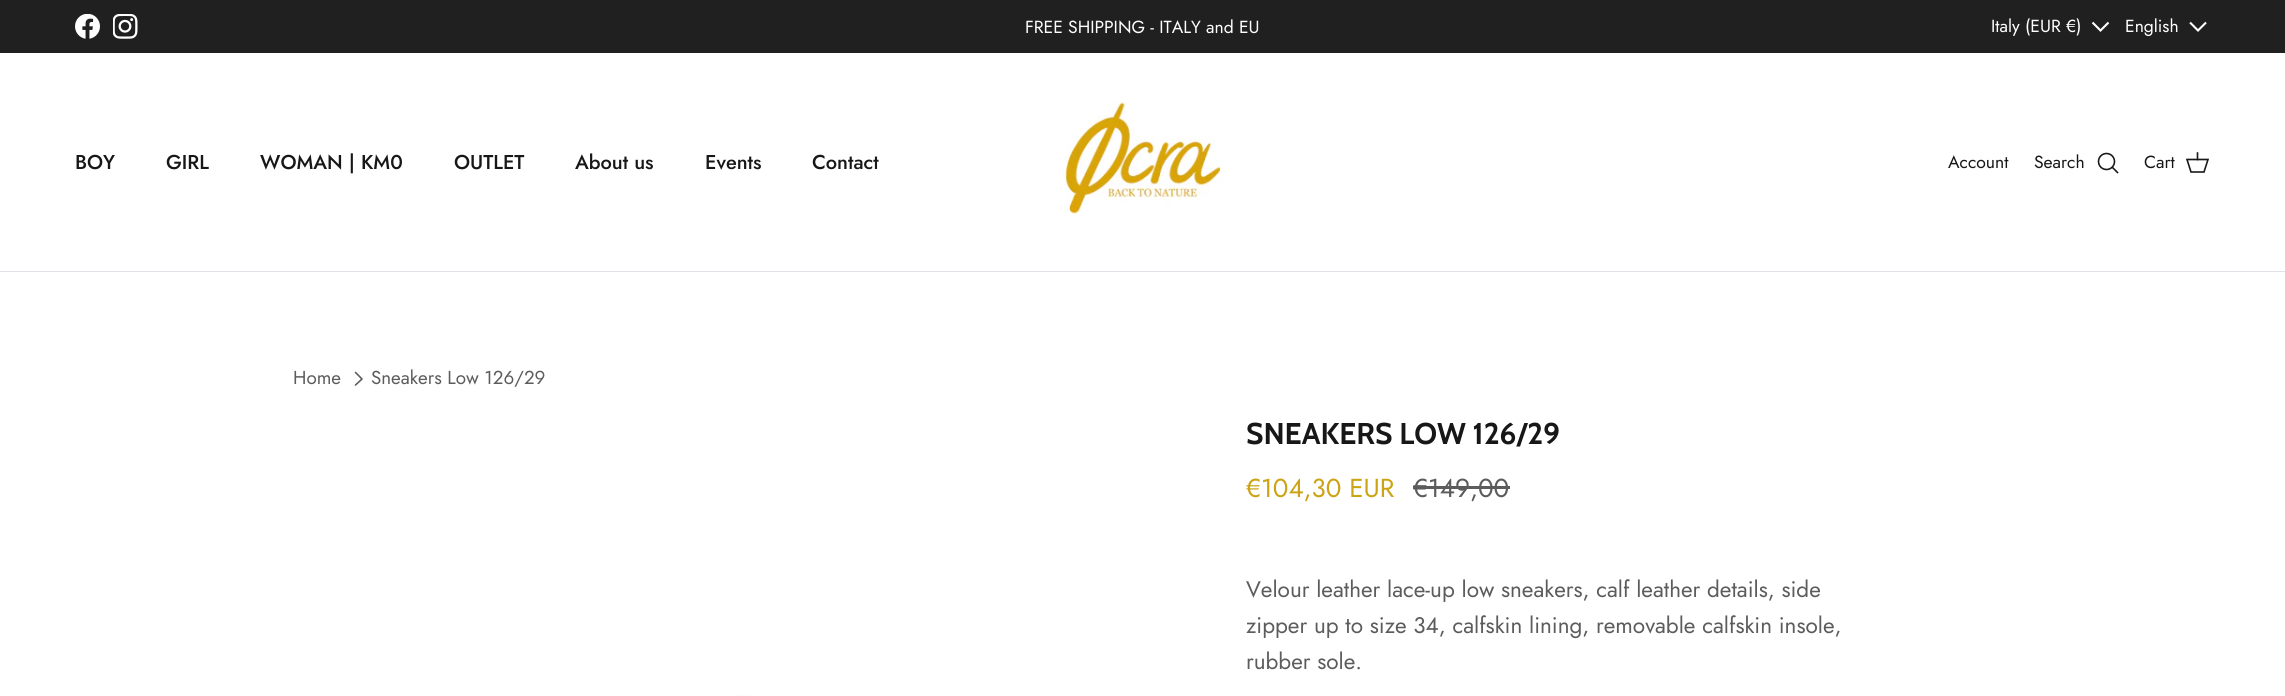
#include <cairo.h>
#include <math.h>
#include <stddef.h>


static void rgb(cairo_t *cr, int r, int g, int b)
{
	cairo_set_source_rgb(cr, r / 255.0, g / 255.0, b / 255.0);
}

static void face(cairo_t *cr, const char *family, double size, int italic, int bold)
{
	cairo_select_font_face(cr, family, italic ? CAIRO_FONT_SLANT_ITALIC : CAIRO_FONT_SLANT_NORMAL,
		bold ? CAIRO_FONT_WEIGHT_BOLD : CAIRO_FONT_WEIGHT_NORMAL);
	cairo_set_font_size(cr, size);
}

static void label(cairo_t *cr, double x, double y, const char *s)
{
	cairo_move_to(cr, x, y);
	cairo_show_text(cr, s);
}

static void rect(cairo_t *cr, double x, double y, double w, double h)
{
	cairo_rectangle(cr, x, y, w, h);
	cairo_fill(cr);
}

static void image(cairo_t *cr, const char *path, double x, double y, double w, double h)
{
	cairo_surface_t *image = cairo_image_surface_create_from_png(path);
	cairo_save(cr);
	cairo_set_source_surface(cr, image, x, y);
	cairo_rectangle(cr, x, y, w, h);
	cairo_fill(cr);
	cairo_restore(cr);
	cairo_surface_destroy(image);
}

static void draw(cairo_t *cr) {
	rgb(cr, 255, 255, 255);
	cairo_paint(cr);
	rgb(cr, 32, 32, 32);
	rect(cr, 0, 0, 2285, 53);
	image(cr, "image0.png", 75, 14, 25, 25);
	image(cr, "image1.png", 113, 14, 25, 25);
	face(cr, "Jost", 17.5, 0, 0);
	rgb(cr, 255, 255, 255);
	label(cr, 1025, 33, "FREE SHIPPING - ITALY and EU");
	label(cr, 1991, 32, "Italy (EUR €)");
	cairo_new_path(cr);
	cairo_move_to(cr, 2108.5, 22.5);
	cairo_line_to(cr, 2100.5, 30.5);
	cairo_line_to(cr, 2092.5, 22.5);
	cairo_set_line_width(cr, 2.1);
	cairo_stroke(cr);
	label(cr, 2125, 32, "English");
	cairo_new_path(cr);
	cairo_move_to(cr, 2206, 22.5);
	cairo_line_to(cr, 2198, 30.5);
	cairo_line_to(cr, 2190, 22.5);
	cairo_stroke(cr);
	rgb(cr, 223, 227, 232);
	rect(cr, 0, 271, 2285, 1);
	face(cr, "Jost Medium", 20, 0, 0);
	rgb(cr, 23, 23, 23);
	label(cr, 75, 169, "BOY");
	label(cr, 166, 169, "GIRL");
	label(cr, 260, 169, "WOMAN | KM0");
	label(cr, 454, 169, "OUTLET");
	label(cr, 575, 169, "About us");
	label(cr, 705, 169, "Events");
	label(cr, 812, 169, "Contact");
	image(cr, "image2.png", 1065, 102, 159, 112);
	face(cr, "Jost", 17.5, 0, 0);
	label(cr, 1948, 168, "Account");
	label(cr, 2034, 168, "Search");
	cairo_new_path(cr);
	cairo_arc(cr, 2106.5, 161.5, 8, 0, 2 * M_PI);
	cairo_set_line_width(cr, 1.6);
	cairo_stroke(cr);
	cairo_new_path(cr);
	cairo_move_to(cr, 2112.5, 167.5);
	cairo_line_to(cr, 2117.5, 172.5);
	cairo_set_line_cap(cr, CAIRO_LINE_CAP_SQUARE);
	cairo_stroke(cr);
	label(cr, 2144, 168, "Cart");
	cairo_new_path(cr);
	cairo_move_to(cr, 2187, 159.5);
	cairo_line_to(cr, 2208, 159.5);
	cairo_line_to(cr, 2204, 172);
	cairo_line_to(cr, 2191, 172);
	cairo_close_path(cr);
	cairo_set_line_cap(cr, CAIRO_LINE_CAP_BUTT);
	cairo_stroke(cr);
	cairo_new_path(cr);
	cairo_move_to(cr, 2197.5, 159.5);
	cairo_line_to(cr, 2197.5, 153);
	cairo_set_line_cap(cr, CAIRO_LINE_CAP_SQUARE);
	cairo_stroke(cr);
	face(cr, "Jost", 18.75, 0, 0);
	rgb(cr, 92, 92, 92);
	label(cr, 293, 384, "Home");
	cairo_new_path(cr);
	cairo_move_to(cr, 355.5, 385);
	cairo_line_to(cr, 362, 379);
	cairo_line_to(cr, 355.5, 372.5);
	cairo_set_line_cap(cr, CAIRO_LINE_CAP_ROUND);
	cairo_set_line_join(cr, CAIRO_LINE_JOIN_ROUND);
	cairo_stroke(cr);
	label(cr, 371, 384, "Sneakers Low 126/29");
	face(cr, "Cabin", 30, 0, 1);
	rgb(cr, 23, 23, 23);
	label(cr, 1246, 444, "SNEAKERS LOW 126/29");
	face(cr, "Jost", 26, 0, 0);
	rgb(cr, 203, 164, 22);
	label(cr, 1246, 497, "€104,30 EUR");
	rgb(cr, 92, 92, 92);
	label(cr, 1413, 497, "€149,00");
	rect(cr, 1413, 486, 97, 3);
	face(cr, "Jost", 22.5, 0, 0);
	label(cr, 1246, 597, "Velour leather lace-up low sneakers, calf leather details, side");
	label(cr, 1246, 633, "zipper up to size 34, calfskin lining, removable calfskin insole,");
	label(cr, 1246, 669, "rubber sole.");
	image(cr, "image3.png", 738, 695, 11, 1);
}

int main(void) {
	cairo_surface_t *surface = cairo_image_surface_create(CAIRO_FORMAT_RGB24, 2285, 696);
	cairo_t *cr = cairo_create(surface);
	cairo_font_options_t *options = cairo_font_options_create();
	cairo_font_options_set_hint_metrics(options, CAIRO_HINT_METRICS_OFF);
	cairo_font_options_set_hint_style(options, CAIRO_HINT_STYLE_NONE);
	cairo_set_font_options(cr, options);
	cairo_set_miter_limit(cr, 4);
	draw(cr);
	cairo_surface_write_to_png(surface, "render.png");
	cairo_font_options_destroy(options);
	cairo_destroy(cr);
	cairo_surface_destroy(surface);
	return 0;
}
